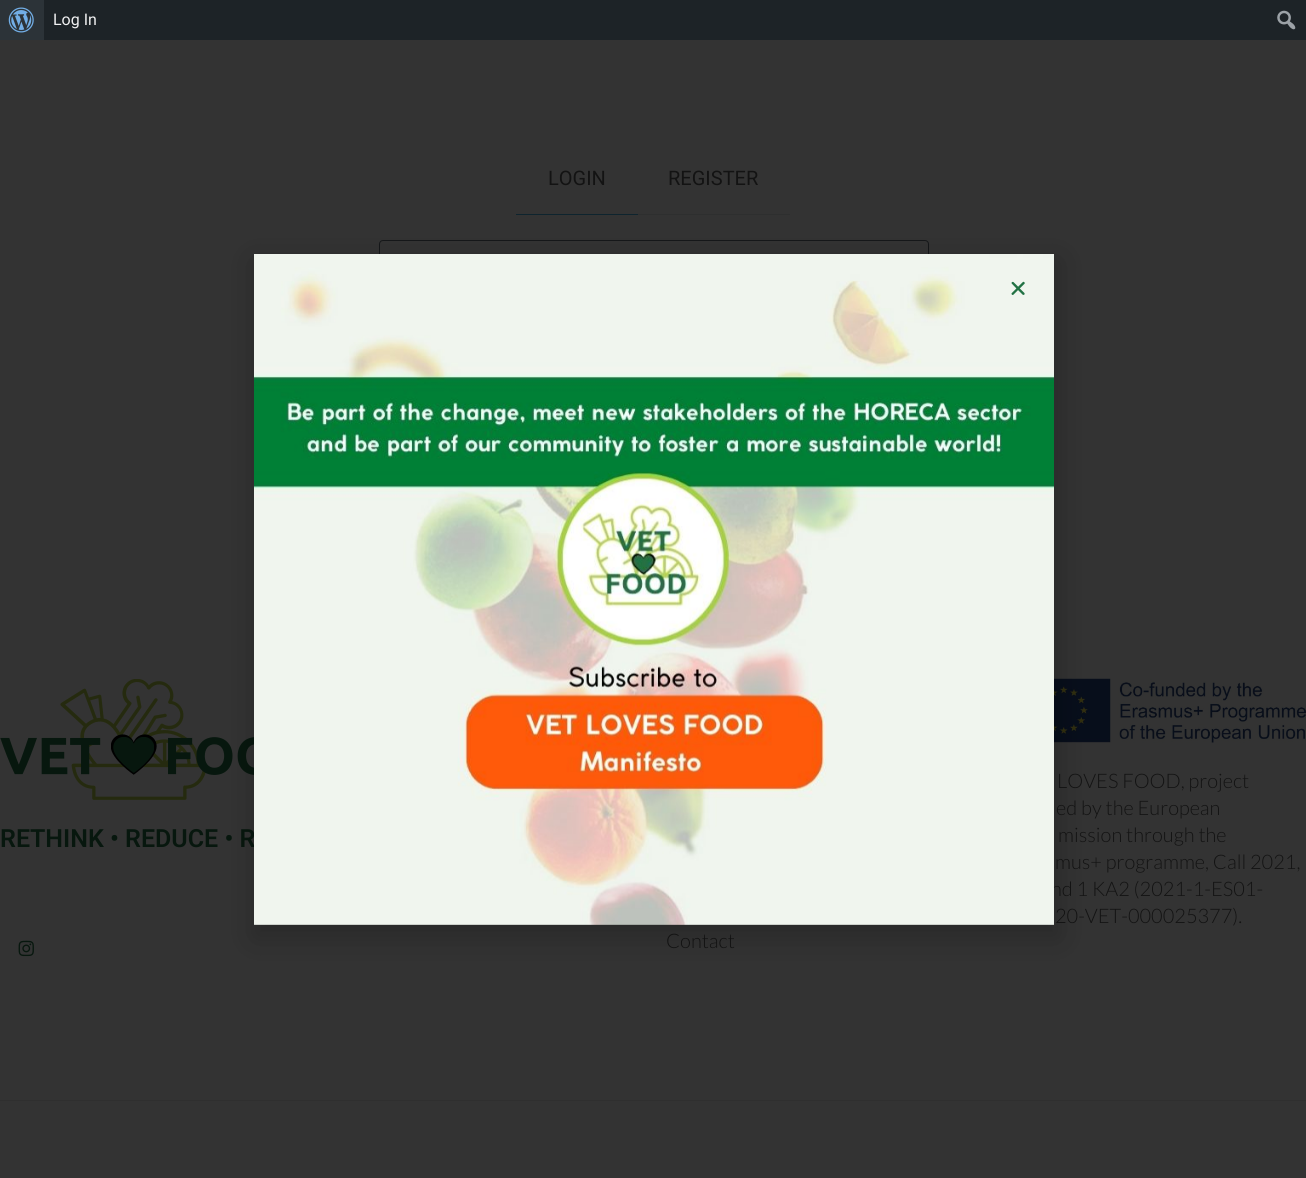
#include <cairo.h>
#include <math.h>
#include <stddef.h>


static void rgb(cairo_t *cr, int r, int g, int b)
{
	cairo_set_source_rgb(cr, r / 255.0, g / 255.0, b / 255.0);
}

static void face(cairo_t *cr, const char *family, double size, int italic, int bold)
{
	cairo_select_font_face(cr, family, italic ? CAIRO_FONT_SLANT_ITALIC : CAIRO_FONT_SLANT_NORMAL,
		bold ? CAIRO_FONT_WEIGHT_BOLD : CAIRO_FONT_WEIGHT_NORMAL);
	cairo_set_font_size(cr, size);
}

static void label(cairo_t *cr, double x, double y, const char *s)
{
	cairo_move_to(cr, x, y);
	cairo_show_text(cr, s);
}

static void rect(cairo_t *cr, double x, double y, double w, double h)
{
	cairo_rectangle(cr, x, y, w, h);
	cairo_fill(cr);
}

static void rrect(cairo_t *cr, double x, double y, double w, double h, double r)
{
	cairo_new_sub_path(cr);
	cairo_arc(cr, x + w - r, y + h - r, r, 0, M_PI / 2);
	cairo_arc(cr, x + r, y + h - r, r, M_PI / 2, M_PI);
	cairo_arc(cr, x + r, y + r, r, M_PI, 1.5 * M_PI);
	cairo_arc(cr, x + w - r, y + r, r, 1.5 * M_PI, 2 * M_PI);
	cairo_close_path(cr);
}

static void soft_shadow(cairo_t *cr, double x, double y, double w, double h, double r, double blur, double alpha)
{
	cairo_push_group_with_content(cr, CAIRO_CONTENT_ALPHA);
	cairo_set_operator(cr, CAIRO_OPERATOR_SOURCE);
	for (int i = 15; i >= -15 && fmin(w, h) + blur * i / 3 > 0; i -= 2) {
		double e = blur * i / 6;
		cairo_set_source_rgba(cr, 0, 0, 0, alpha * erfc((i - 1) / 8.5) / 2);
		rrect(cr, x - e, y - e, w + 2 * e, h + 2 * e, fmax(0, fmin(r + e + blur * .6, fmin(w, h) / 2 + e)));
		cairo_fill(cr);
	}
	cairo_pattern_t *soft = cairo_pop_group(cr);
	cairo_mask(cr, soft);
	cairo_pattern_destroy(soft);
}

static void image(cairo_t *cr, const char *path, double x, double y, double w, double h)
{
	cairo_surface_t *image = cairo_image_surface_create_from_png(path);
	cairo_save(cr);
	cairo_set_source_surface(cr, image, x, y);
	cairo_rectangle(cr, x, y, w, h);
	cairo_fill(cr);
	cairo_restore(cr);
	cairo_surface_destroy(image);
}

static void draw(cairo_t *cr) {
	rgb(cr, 51, 51, 51);
	cairo_paint(cr);
	rgb(cr, 29, 35, 39);
	rect(cr, 44, 0, 1262, 40);
	rgb(cr, 44, 51, 56);
	rect(cr, 0, 0, 44, 40);
	image(cr, "image0.png", 8, 7, 26, 26);
	face(cr, "Roboto", 16, 0, 0);
	rgb(cr, 240, 240, 241);
	label(cr, 53, 25, "Log In");
	image(cr, "image1.png", 1277, 10, 19, 20);
	rgb(cr, 14, 36, 46);
	rect(cr, 516, 214, 122, 1);
	face(cr, "Roboto", 20, 0, 0);
	rgb(cr, 19, 19, 19);
	label(cr, 548, 185, "LOGIN");
	rgb(cr, 46, 47, 47);
	rect(cr, 638, 214, 152, 1);
	rgb(cr, 19, 19, 19);
	label(cr, 668, 185, "REGISTER");
	rrect(cr, 379.5, 240.5, 549, 49, 3.5);
	rgb(cr, 21, 23, 25);
	cairo_set_line_width(cr, 1);
	cairo_stroke(cr);
	image(cr, "image2.png", 0, 679, 254, 121);
	face(cr, "Roboto SemiBold", 25, 0, 0);
	rgb(cr, 7, 23, 14);
	label(cr, 0, 847, "RETHINK • REDUCE • R");
	image(cr, "image3.png", 18, 940, 16, 17);
	image(cr, "image4.png", 1054, 678, 252, 65);
	face(cr, "Lato Light", 20, 0, 0);
	rgb(cr, 19, 19, 19);
	label(cr, 1057, 788, "LOVES FOOD, project");
	label(cr, 1056, 815, "ed by the European");
	label(cr, 1058, 842, "mission through the");
	label(cr, 1055, 869, "mus+ programme, Call 2021,");
	label(cr, 1051, 896, "nd 1 KA2 (2021-1-ES01-");
	label(cr, 1055, 923, "20-VET-000025377).");
	label(cr, 666, 948, "Contact");
	rgb(cr, 47, 47, 47);
	rect(cr, 0, 1100, 1306, 1);
	rgb(cr, 0, 0, 0);
	soft_shadow(cr, 253, 260, 807, 679, 0, 14.5, 0.2);
	image(cr, "image5.png", 254, 254, 800, 671);
	image(cr, "image6.png", 1011, 281, 14, 14);
}

int main(void) {
	cairo_surface_t *surface = cairo_image_surface_create(CAIRO_FORMAT_RGB24, 1306, 1178);
	cairo_t *cr = cairo_create(surface);
	cairo_font_options_t *options = cairo_font_options_create();
	cairo_font_options_set_hint_metrics(options, CAIRO_HINT_METRICS_OFF);
	cairo_font_options_set_hint_style(options, CAIRO_HINT_STYLE_NONE);
	cairo_set_font_options(cr, options);
	cairo_set_miter_limit(cr, 4);
	draw(cr);
	cairo_surface_write_to_png(surface, "render.png");
	cairo_font_options_destroy(options);
	cairo_destroy(cr);
	cairo_surface_destroy(surface);
	return 0;
}
